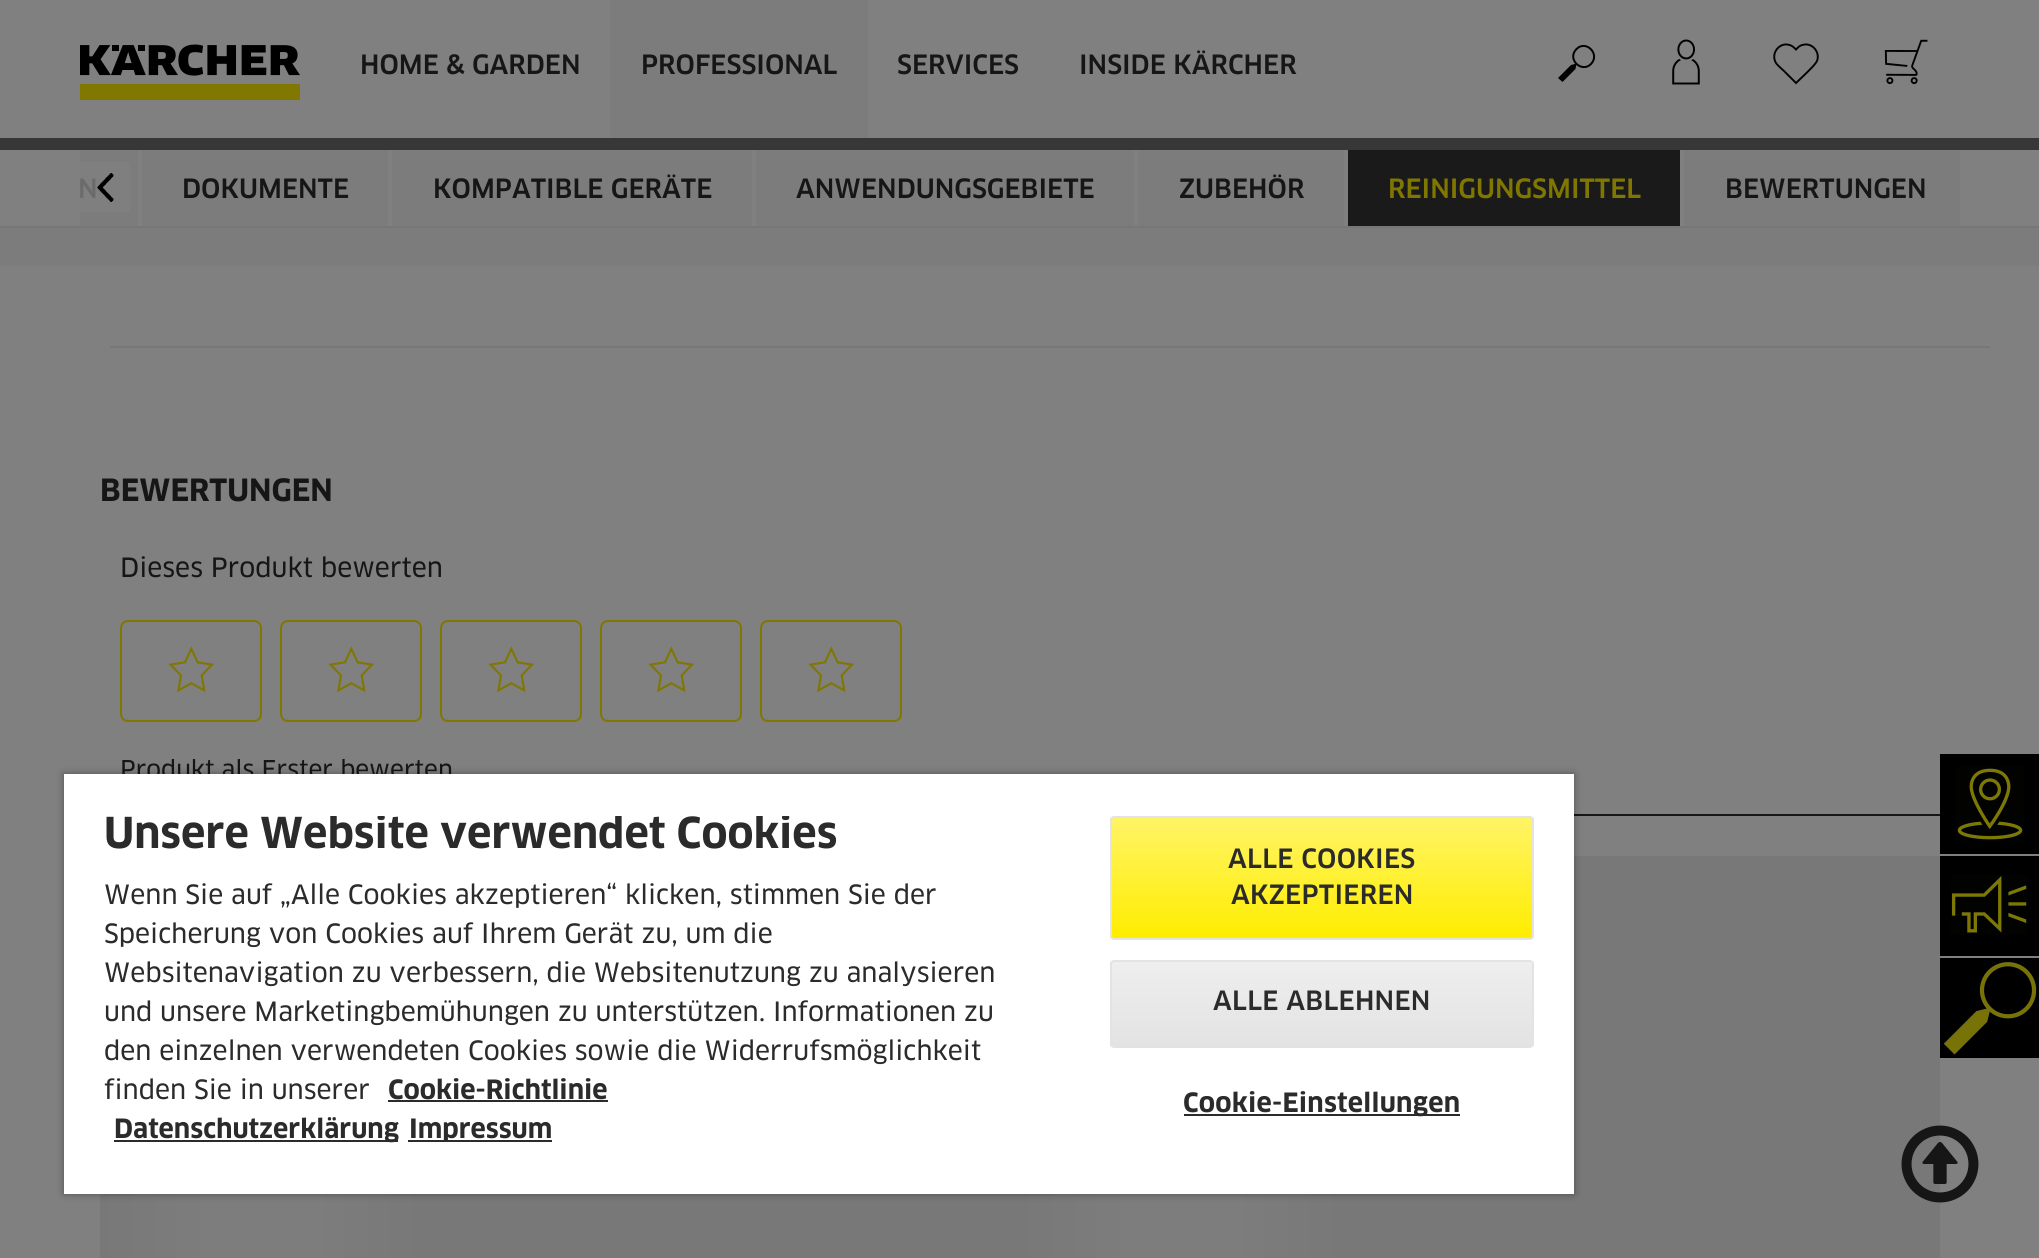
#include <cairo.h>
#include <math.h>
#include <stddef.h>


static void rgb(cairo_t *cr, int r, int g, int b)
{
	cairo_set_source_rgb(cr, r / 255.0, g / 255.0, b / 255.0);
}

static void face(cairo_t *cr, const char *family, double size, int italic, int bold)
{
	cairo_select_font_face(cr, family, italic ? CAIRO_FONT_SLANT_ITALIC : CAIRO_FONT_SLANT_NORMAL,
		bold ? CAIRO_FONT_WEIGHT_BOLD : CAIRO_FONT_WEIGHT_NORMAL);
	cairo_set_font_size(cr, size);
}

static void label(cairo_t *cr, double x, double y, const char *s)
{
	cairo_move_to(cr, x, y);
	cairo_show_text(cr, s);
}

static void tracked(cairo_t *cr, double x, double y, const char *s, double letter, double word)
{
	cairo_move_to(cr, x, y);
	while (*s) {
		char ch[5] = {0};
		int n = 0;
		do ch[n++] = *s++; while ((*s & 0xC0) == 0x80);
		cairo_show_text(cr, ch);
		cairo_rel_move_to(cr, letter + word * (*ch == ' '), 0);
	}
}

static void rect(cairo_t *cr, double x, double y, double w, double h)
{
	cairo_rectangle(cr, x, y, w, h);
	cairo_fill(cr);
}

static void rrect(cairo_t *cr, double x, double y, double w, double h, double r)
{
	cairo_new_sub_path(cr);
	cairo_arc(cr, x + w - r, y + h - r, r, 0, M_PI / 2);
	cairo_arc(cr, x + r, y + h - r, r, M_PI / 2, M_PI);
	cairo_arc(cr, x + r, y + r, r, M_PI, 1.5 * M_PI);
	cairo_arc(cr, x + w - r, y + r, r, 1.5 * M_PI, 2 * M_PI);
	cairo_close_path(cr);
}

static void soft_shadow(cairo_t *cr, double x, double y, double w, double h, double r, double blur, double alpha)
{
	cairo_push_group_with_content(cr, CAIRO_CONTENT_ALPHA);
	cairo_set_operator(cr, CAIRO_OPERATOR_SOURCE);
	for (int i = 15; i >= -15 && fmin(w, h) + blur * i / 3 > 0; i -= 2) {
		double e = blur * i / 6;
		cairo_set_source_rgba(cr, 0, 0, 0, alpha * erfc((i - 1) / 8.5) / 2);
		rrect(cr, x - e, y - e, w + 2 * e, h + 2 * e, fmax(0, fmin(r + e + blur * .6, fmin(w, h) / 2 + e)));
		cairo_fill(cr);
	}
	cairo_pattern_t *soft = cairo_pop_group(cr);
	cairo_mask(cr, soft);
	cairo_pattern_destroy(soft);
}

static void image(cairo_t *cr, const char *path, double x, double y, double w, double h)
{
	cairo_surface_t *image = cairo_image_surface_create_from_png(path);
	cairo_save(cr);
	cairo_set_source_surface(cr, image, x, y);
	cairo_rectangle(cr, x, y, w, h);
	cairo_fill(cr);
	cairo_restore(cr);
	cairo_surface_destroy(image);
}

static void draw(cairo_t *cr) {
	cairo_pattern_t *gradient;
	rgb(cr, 128, 128, 128);
	cairo_paint(cr);
	rgb(cr, 55, 55, 55);
	rect(cr, 0, 138, 2039, 12);
	image(cr, "image0.png", 80, 44, 220, 56);
	face(cr, "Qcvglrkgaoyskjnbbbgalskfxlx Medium", 26, 0, 0);
	rgb(cr, 22, 22, 22);
	label(cr, 360, 74, "HOME & GARDEN");
	rgb(cr, 124, 124, 124);
	rect(cr, 610, 0, 258, 138);
	rgb(cr, 22, 22, 22);
	label(cr, 641, 74, "PROFESSIONAL");
	label(cr, 897, 74, "SERVICES");
	label(cr, 1079, 74, "INSIDE KÄRCHER");
	cairo_new_path(cr);
	cairo_move_to(cr, 1576.5, 49);
	cairo_curve_to(cr, 1566.5, 59, 1581.5, 73.5, 1591, 64);
	cairo_curve_to(cr, 1600.5, 54, 1586, 39.5, 1576.5, 49);
	cairo_close_path(cr);
	rgb(cr, 0, 0, 0);
	cairo_stroke(cr);
	cairo_new_path(cr);
	cairo_move_to(cr, 1558, 78);
	cairo_line_to(cr, 1571, 65);
	cairo_line_to(cr, 1576.5, 63.5);
	cairo_line_to(cr, 1575.5, 69);
	cairo_line_to(cr, 1562.5, 82);
	cairo_fill(cr);
	image(cr, "image1.png", 1672, 39, 28, 46);
	cairo_new_path(cr);
	cairo_move_to(cr, 1796, 83);
	cairo_line_to(cr, 1784, 71);
	cairo_curve_to(cr, 1781, 68, 1776.5, 65, 1775, 61);
	cairo_curve_to(cr, 1771.5, 51.5, 1780.5, 42, 1789.5, 45);
	cairo_curve_to(cr, 1792, 45.5, 1794, 47.5, 1796, 49.5);
	cairo_curve_to(cr, 1798, 47.5, 1799.5, 45.5, 1802.5, 45);
	cairo_curve_to(cr, 1811.5, 42, 1820.5, 51.5, 1817, 61);
	cairo_curve_to(cr, 1815, 65.5, 1800, 79, 1796, 83);
	cairo_close_path(cr);
	cairo_set_line_width(cr, 1.9);
	cairo_stroke(cr);
	image(cr, "image2.png", 1884, 39, 44, 46);
	rgb(cr, 119, 119, 119);
	rect(cr, 0, 226, 2039, 2);
	rgb(cr, 124, 124, 124);
	rect(cr, 80, 150, 58, 76);
	rgb(cr, 127, 127, 127);
	rect(cr, 80, 162, 50, 50);
	image(cr, "image3.png", 97, 173, 17, 29);
	rgb(cr, 107, 107, 107);
	label(cr, 78, 198, "N");
	rgb(cr, 124, 124, 124);
	rect(cr, 142, 150, 246, 76);
	rgb(cr, 22, 22, 22);
	label(cr, 182, 198, "DOKUMENTE");
	rgb(cr, 124, 124, 124);
	rect(cr, 392, 150, 360, 76);
	rgb(cr, 22, 22, 22);
	label(cr, 433, 198, "KOMPATIBLE GERÄTE");
	rgb(cr, 124, 124, 124);
	rect(cr, 756, 150, 378, 76);
	rgb(cr, 22, 22, 22);
	label(cr, 796, 198, "ANWENDUNGSGEBIETE");
	rgb(cr, 124, 124, 124);
	rect(cr, 1138, 150, 206, 76);
	rgb(cr, 22, 22, 22);
	label(cr, 1179, 198, "ZUBEHÖR");
	rgb(cr, 26, 26, 26);
	rect(cr, 1348, 150, 332, 76);
	rgb(cr, 128, 119, 0);
	label(cr, 1388, 198, "REINIGUNGSMITTEL");
	rgb(cr, 124, 124, 124);
	rect(cr, 1684, 150, 276, 76);
	rgb(cr, 22, 22, 22);
	label(cr, 1725, 198, "BEWERTUNGEN");
	rgb(cr, 124, 124, 124);
	rect(cr, 0, 228, 2039, 38);
	rgb(cr, 119, 119, 119);
	rect(cr, 110, 346, 1880, 2);
	face(cr, "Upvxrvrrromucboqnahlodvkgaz", 30, 0, 1);
	rgb(cr, 22, 22, 22);
	label(cr, 100, 501, "BEWERTUNGEN");
	rect(cr, 1574, 814, 366, 2);
	face(cr, "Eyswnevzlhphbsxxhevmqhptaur", 26, 0, 0);
	label(cr, 120, 577, "Dieses Produkt bewerten");
	rrect(cr, 121, 621, 140, 100, 7);
	rgb(cr, 128, 119, 0);
	cairo_set_line_width(cr, 2);
	cairo_stroke(cr);
	image(cr, "image4.png", 168, 646, 47, 47);
	rrect(cr, 281, 621, 140, 100, 7);
	cairo_stroke(cr);
	image(cr, "image4.png", 328, 646, 47, 47);
	rrect(cr, 441, 621, 140, 100, 7);
	cairo_stroke(cr);
	image(cr, "image4.png", 488, 646, 47, 47);
	rrect(cr, 601, 621, 140, 100, 7);
	cairo_stroke(cr);
	image(cr, "image4.png", 648, 646, 47, 47);
	rrect(cr, 761, 621, 140, 100, 7);
	cairo_stroke(cr);
	image(cr, "image4.png", 808, 646, 47, 47);
	face(cr, "Eyswnevzlhphbsxxhevmqhptaur", 24, 0, 0);
	rgb(cr, 22, 22, 22);
	label(cr, 120, 778, "Produkt als Erster bewerten");
	rgb(cr, 120, 120, 120);
	rect(cr, 422, 1194, 598, 64);
	gradient = cairo_pattern_create_linear(100, 1256, 422, 1256);
	cairo_pattern_add_color_stop_rgba(gradient, 0, 0.471, 0.471, 0.471, 1);
	cairo_pattern_add_color_stop_rgba(gradient, 0.34, 0.49, 0.49, 0.49, 1);
	cairo_pattern_add_color_stop_rgba(gradient, 0.66, 0.49, 0.49, 0.49, 1);
	cairo_pattern_add_color_stop_rgba(gradient, 1, 0.471, 0.471, 0.471, 1);
	cairo_set_source(cr, gradient);
	cairo_pattern_destroy(gradient);
	rect(cr, 100, 1194, 322, 64);
	rgb(cr, 120, 120, 120);
	rect(cr, 1342, 856, 598, 402);
	gradient = cairo_pattern_create_linear(1020, 1256, 1342, 1256);
	cairo_pattern_add_color_stop_rgba(gradient, 0, 0.471, 0.471, 0.471, 1);
	cairo_pattern_add_color_stop_rgba(gradient, 0.34, 0.49, 0.49, 0.49, 1);
	cairo_pattern_add_color_stop_rgba(gradient, 0.66, 0.49, 0.49, 0.49, 1);
	cairo_pattern_add_color_stop_rgba(gradient, 1, 0.471, 0.471, 0.471, 1);
	cairo_set_source(cr, gradient);
	cairo_pattern_destroy(gradient);
	rect(cr, 1020, 1194, 322, 64);
	rgb(cr, 0, 0, 0);
	rect(cr, 1940, 754, 99, 100);
	image(cr, "image5.png", 1956, 767, 68, 74);
	rect(cr, 1940, 856, 99, 100);
	image(cr, "image6.png", 1951, 875, 77, 60);
	rect(cr, 1940, 958, 99, 100);
	image(cr, "image7.png", 1943, 962, 94, 93);
	image(cr, "image8.png", 1901, 1125, 78, 78);
	rgb(cr, 0, 0, 0);
	soft_shadow(cr, 64, 774, 1510, 420, 0, 4, 0.35);
	rgb(cr, 255, 255, 255);
	rect(cr, 64, 774, 1510, 420);
	cairo_save(cr);
	cairo_rectangle(cr, 104, 816, 916, 334);
	cairo_clip(cr);
	face(cr, "Upvxrvrrromucboqnahlodvkgaz", 41.6, 0, 1);
	rgb(cr, 43, 43, 43);
	label(cr, 104, 848, "Unsere Website verwendet Cookies");
	cairo_restore(cr);
	face(cr, "Eyswnevzlhphbsxxhevmqhptaur", 26, 0, 0);
	rgb(cr, 43, 43, 43);
	label(cr, 104, 904, "Wenn Sie auf „Alle Cookies akzeptieren“ klicken, stimmen Sie der");
	label(cr, 104, 943, "Speicherung von Cookies auf Ihrem Gerät zu, um die");
	label(cr, 104, 982, "Websitenavigation zu verbessern, die Websitenutzung zu analysieren");
	label(cr, 104, 1021, "und unsere Marketingbemühungen zu unterstützen. Informationen zu");
	label(cr, 104, 1060, "den einzelnen verwendeten Cookies sowie die Widerrufsmöglichkeit");
	label(cr, 104, 1099, "finden Sie in unserer");
	face(cr, "Upvxrvrrromucboqnahlodvkgaz", 26, 0, 1);
	label(cr, 388, 1099, "Cookie-Richtlinie");
	rect(cr, 388, 1100, 220, 2);
	rect(cr, 114, 1140, 284, 2);
	label(cr, 114, 1138, "Datenschutzerklärung");
	rect(cr, 408, 1140, 144, 2);
	label(cr, 409, 1138, "Impressum");
	cairo_save(cr);
	rrect(cr, 1110, 816, 424, 124, 4);
	cairo_clip(cr);
	gradient = cairo_pattern_create_linear(1322, 938, 1322, 818);
	cairo_pattern_add_color_stop_rgba(gradient, 0, 1, 0.929, 0, 1);
	cairo_pattern_add_color_stop_rgba(gradient, 1, 1, 0.957, 0.4, 1);
	cairo_set_source(cr, gradient);
	cairo_pattern_destroy(gradient);
	rect(cr, 1110, 818, 424, 120);
	cairo_restore(cr);
	rrect(cr, 1111, 817, 422, 122, 3);
	rgb(cr, 227, 227, 227);
	cairo_stroke(cr);
	face(cr, "Qcvglrkgaoyskjnbbbgalskfxlx Medium", 26, 0, 0);
	rgb(cr, 43, 43, 43);
	tracked(cr, 1228, 868, "ALLE COOKIES", 0.25, 0);
	tracked(cr, 1231, 904, "AKZEPTIEREN", 0.25, 0);
	cairo_save(cr);
	rrect(cr, 1110, 960, 424, 88, 4);
	cairo_clip(cr);
	gradient = cairo_pattern_create_linear(1112, 1046, 1112, 962);
	cairo_pattern_add_color_stop_rgba(gradient, 0, 0.89, 0.89, 0.89, 1);
	cairo_pattern_add_color_stop_rgba(gradient, 1, 0.933, 0.933, 0.933, 1);
	cairo_set_source(cr, gradient);
	cairo_pattern_destroy(gradient);
	rect(cr, 1110, 962, 424, 84);
	cairo_restore(cr);
	rrect(cr, 1111, 961, 422, 86, 3);
	rgb(cr, 227, 227, 227);
	cairo_stroke(cr);
	rgb(cr, 43, 43, 43);
	tracked(cr, 1213, 1010, "ALLE ABLEHNEN", 0.25, 0);
	rect(cr, 1184, 1114, 276, 2);
	face(cr, "Upvxrvrrromucboqnahlodvkgaz", 26, 0, 1);
	tracked(cr, 1183, 1112, "Cookie-Einstellungen", 0.25, 0);
}

int main(void) {
	cairo_surface_t *surface = cairo_image_surface_create(CAIRO_FORMAT_RGB24, 2039, 1258);
	cairo_t *cr = cairo_create(surface);
	cairo_font_options_t *options = cairo_font_options_create();
	cairo_font_options_set_hint_metrics(options, CAIRO_HINT_METRICS_OFF);
	cairo_font_options_set_hint_style(options, CAIRO_HINT_STYLE_NONE);
	cairo_set_font_options(cr, options);
	cairo_set_miter_limit(cr, 4);
	draw(cr);
	cairo_surface_write_to_png(surface, "render.png");
	cairo_font_options_destroy(options);
	cairo_destroy(cr);
	cairo_surface_destroy(surface);
	return 0;
}
